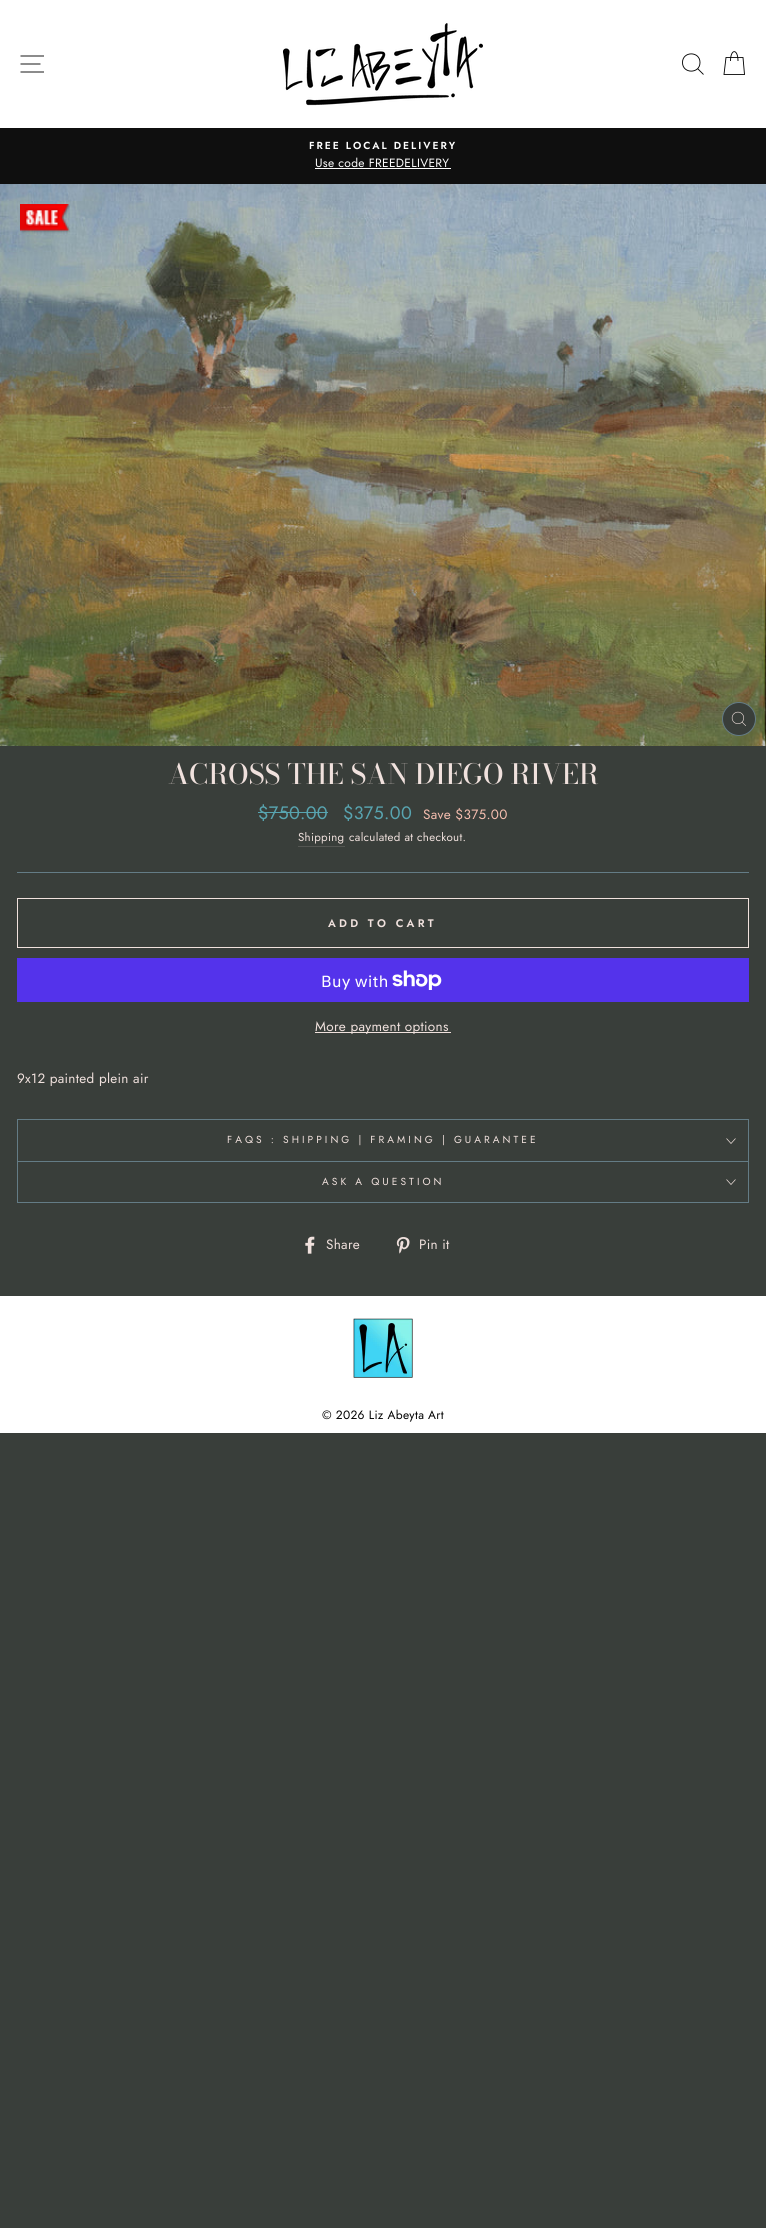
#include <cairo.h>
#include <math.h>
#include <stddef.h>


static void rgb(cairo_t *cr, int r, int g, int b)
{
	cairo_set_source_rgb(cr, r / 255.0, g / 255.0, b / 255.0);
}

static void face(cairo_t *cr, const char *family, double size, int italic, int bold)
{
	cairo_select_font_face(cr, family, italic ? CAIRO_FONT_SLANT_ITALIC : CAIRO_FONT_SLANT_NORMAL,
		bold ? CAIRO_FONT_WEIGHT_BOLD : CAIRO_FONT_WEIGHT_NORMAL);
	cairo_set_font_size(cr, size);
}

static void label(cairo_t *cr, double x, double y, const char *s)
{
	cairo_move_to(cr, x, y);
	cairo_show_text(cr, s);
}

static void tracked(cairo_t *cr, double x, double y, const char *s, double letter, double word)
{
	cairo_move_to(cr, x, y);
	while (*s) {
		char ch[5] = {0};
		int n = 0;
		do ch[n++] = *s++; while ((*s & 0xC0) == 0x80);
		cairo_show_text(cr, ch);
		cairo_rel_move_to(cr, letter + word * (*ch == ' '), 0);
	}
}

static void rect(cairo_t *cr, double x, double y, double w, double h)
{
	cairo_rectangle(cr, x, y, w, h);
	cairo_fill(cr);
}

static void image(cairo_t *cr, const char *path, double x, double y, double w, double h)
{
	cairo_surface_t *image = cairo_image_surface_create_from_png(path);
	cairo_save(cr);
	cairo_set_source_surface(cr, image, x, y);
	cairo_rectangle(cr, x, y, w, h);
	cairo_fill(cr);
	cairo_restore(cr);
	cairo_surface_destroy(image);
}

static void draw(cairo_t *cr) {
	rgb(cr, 57, 62, 58);
	cairo_paint(cr);
	rgb(cr, 255, 255, 255);
	rect(cr, 0, 0, 766, 128);
	cairo_new_path(cr);
	cairo_move_to(cr, 20.5, 56);
	cairo_line_to(cr, 44, 56);
	cairo_move_to(cr, 20.5, 64);
	cairo_line_to(cr, 40.5, 64);
	cairo_move_to(cr, 20.5, 72);
	cairo_line_to(cr, 44, 72);
	rgb(cr, 0, 0, 0);
	cairo_set_line_width(cr, 0.9);
	cairo_stroke(cr);
	image(cr, "image0.png", 283, 23, 200, 83);
	cairo_new_path(cr);
	cairo_move_to(cr, 700, 62.5);
	cairo_curve_to(cr, 700, 74, 682.5, 74, 682.5, 62.5);
	cairo_curve_to(cr, 682.5, 51, 700, 51, 700, 62.5);
	cairo_close_path(cr);
	cairo_move_to(cr, 703.5, 74.5);
	cairo_line_to(cr, 697.5, 68.5);
	cairo_move_to(cr, 730.5, 61);
	cairo_curve_to(cr, 730.5, 48.5, 738, 48.5, 738, 61);
	cairo_move_to(cr, 726, 57.5);
	cairo_line_to(cr, 743, 57.5);
	cairo_line_to(cr, 744.5, 74.5);
	cairo_line_to(cr, 724, 74.5);
	cairo_close_path(cr);
	cairo_stroke(cr);
	rgb(cr, 15, 15, 15);
	rect(cr, 0, 128, 766, 56);
	face(cr, "Jost SemiBold", 10.2, 0, 0);
	rgb(cr, 255, 255, 255);
	tracked(cr, 309, 149, "FREE LOCAL DELIVERY", 2, 0);
	face(cr, "Jost", 12, 0, 0);
	tracked(cr, 315, 167, "Use code FREEDELIVERY", 0.3, 0);
	rect(cr, 315, 168, 136, 1);
	image(cr, "image1.png", 0, 184, 766, 562);
	rgb(cr, 57, 62, 58);
	cairo_arc(cr, 739, 719, 16.5, 0, 2 * M_PI);
	cairo_fill_preserve(cr);
	rgb(cr, 100, 124, 134);
	cairo_set_line_width(cr, 1);
	cairo_stroke(cr);
	image(cr, "image2.png", 731, 711, 15, 15);
	image(cr, "image3.png", 20, 204, 50, 30);
	face(cr, "Bodoni Moda Medium", 27.75, 0, 0);
	rgb(cr, 240, 225, 221);
	label(cr, 168, 784, "ACROSS THE SAN DIEGO RIVER");
	face(cr, "Jost", 18, 0, 0);
	rgb(cr, 88, 164, 176);
	tracked(cr, 258, 819, "$750.00", 0.3, 0);
	rect(cr, 258, 812, 70, 1);
	tracked(cr, 343, 819, "$375.00", 0.3, 0);
	face(cr, "Jost", 13.5, 0, 0);
	rgb(cr, 244, 189, 174);
	tracked(cr, 423, 819, "Save $375.00", 0.3, 0);
	rgb(cr, 84, 86, 82);
	rect(cr, 298, 846, 47, 1);
	face(cr, "Jost", 11.5, 0, 0);
	rgb(cr, 240, 225, 221);
	tracked(cr, 298, 841, "Shipping", 0.3, 0);
	tracked(cr, 349, 841, "calculated at checkout.", 0.3, 0);
	rgb(cr, 100, 124, 134);
	rect(cr, 17, 872, 732, 1);
	cairo_rectangle(cr, 17.5, 898.5, 731, 49);
	rgb(cr, 240, 225, 221);
	cairo_stroke(cr);
	face(cr, "Jost SemiBold", 11, 0, 0);
	tracked(cr, 328, 927, "ADD TO CART", 3.25, 0);
	rgb(cr, 84, 51, 235);
	rect(cr, 17, 958, 732, 44);
	face(cr, "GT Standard", 16, 0, 0);
	rgb(cr, 255, 255, 255);
	tracked(cr, 321, 987, "Buy with", 0.3, 0);
	image(cr, "image4.png", 392, 970, 50, 20);
	rgb(cr, 240, 225, 221);
	rect(cr, 315, 1032, 136, 1);
	face(cr, "Jost", 13.5, 0, 0);
	tracked(cr, 315, 1031, "More payment options", 0.3, 0);
	tracked(cr, 17, 1083, "9x12 painted plein air", 0.3, 0);
	rgb(cr, 100, 124, 134);
	rect(cr, 17, 1202, 732, 1);
	rect(cr, 17, 1119, 732, 1);
	rect(cr, 748, 1119, 1, 42);
	rect(cr, 17, 1119, 1, 42);
	face(cr, "Jost", 10.2, 0, 0);
	rgb(cr, 240, 225, 221);
	tracked(cr, 227, 1143, "FAQS : SHIPPING | FRAMING | GUARANTEE", 3.05, 0);
	cairo_new_path(cr);
	cairo_move_to(cr, 726.5, 1138.5);
	cairo_line_to(cr, 731, 1143.5);
	cairo_line_to(cr, 735.5, 1138.5);
	cairo_set_line_width(cr, 0.7);
	cairo_stroke(cr);
	rgb(cr, 100, 124, 134);
	rect(cr, 17, 1161, 732, 1);
	rect(cr, 748, 1161, 1, 41);
	rect(cr, 17, 1161, 1, 41);
	rgb(cr, 240, 225, 221);
	tracked(cr, 322, 1185, "ASK A QUESTION", 3.05, 0);
	cairo_new_path(cr);
	cairo_move_to(cr, 726.5, 1179.5);
	cairo_line_to(cr, 731, 1184.5);
	cairo_line_to(cr, 735.5, 1179.5);
	cairo_stroke(cr);
	image(cr, "image5.png", 305, 1236, 10, 18);
	face(cr, "Jost", 13.5, 0, 0);
	tracked(cr, 326, 1249, "Share", 0.3, 0);
	image(cr, "image6.png", 396, 1237, 14, 17);
	tracked(cr, 419, 1249, "Pin it", 0.3, 0);
	rgb(cr, 255, 255, 255);
	rect(cr, 0, 1296, 766, 137);
	image(cr, "image7.png", 353, 1318, 60, 60);
	face(cr, "Jost", 12, 0, 0);
	rgb(cr, 0, 0, 0);
	tracked(cr, 322, 1419, "© 2026 Liz Abeyta Art", 0.3, 0);
}

int main(void) {
	cairo_surface_t *surface = cairo_image_surface_create(CAIRO_FORMAT_RGB24, 766, 2228);
	cairo_t *cr = cairo_create(surface);
	cairo_font_options_t *options = cairo_font_options_create();
	cairo_font_options_set_hint_metrics(options, CAIRO_HINT_METRICS_OFF);
	cairo_font_options_set_hint_style(options, CAIRO_HINT_STYLE_NONE);
	cairo_set_font_options(cr, options);
	cairo_set_miter_limit(cr, 4);
	draw(cr);
	cairo_surface_write_to_png(surface, "render.png");
	cairo_font_options_destroy(options);
	cairo_destroy(cr);
	cairo_surface_destroy(surface);
	return 0;
}
